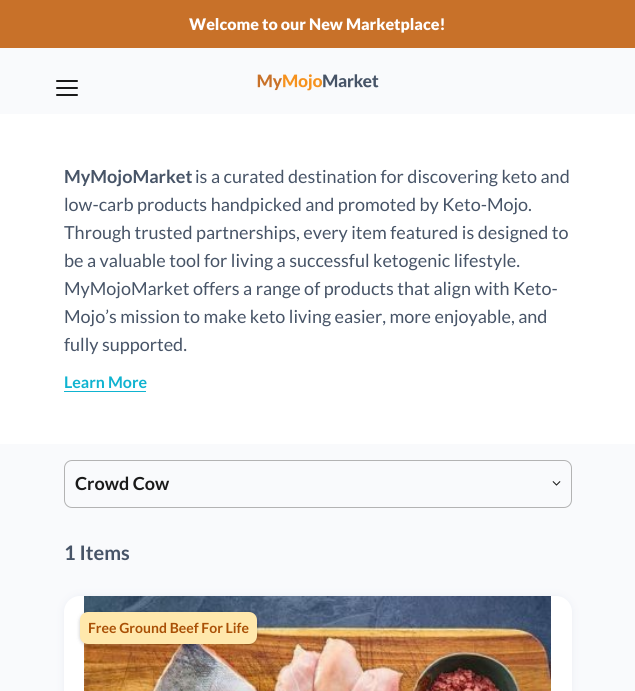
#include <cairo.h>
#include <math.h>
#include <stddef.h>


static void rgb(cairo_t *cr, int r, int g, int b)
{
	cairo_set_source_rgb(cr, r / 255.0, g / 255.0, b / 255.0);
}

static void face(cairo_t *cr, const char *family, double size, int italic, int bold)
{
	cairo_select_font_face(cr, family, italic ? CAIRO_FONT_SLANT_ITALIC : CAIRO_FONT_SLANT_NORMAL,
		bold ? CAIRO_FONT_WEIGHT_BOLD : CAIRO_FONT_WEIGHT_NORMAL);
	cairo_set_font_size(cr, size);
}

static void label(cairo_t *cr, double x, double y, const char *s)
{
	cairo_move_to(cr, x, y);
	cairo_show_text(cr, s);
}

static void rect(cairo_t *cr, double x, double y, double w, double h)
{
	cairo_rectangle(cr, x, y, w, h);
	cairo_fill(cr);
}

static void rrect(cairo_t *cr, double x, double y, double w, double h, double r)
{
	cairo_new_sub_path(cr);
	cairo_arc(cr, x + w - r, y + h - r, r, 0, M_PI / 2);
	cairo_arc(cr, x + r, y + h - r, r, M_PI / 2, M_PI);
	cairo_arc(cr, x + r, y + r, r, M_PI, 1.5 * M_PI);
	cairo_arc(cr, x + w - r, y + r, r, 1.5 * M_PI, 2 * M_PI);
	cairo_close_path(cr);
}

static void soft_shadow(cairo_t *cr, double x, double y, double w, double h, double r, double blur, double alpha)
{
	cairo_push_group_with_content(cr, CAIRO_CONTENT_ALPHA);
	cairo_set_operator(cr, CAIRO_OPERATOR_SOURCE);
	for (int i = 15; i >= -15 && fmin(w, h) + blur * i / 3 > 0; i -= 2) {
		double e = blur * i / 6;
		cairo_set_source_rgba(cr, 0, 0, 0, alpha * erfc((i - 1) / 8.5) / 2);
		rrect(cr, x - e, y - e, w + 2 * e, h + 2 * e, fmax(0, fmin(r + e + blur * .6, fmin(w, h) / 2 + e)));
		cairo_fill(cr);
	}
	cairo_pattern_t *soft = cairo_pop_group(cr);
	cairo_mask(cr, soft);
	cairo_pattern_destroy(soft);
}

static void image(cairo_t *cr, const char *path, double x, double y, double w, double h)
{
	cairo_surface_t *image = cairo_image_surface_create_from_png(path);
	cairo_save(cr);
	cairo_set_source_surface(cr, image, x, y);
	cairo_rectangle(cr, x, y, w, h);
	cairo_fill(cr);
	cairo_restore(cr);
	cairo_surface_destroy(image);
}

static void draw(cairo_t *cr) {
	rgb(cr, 200, 113, 41);
	cairo_paint(cr);
	face(cr, "Lato Black", 16, 0, 0);
	rgb(cr, 255, 255, 255);
	label(cr, 189, 30, "Welcome to our New Marketplace!");
	rgb(cr, 249, 250, 252);
	rect(cr, 0, 48, 635, 66);
	cairo_new_path(cr);
	cairo_move_to(cr, 57, 81);
	cairo_line_to(cr, 77, 81);
	cairo_move_to(cr, 57, 88);
	cairo_line_to(cr, 77, 88);
	cairo_move_to(cr, 57, 95);
	cairo_line_to(cr, 77, 95);
	rgb(cr, 26, 26, 26);
	cairo_set_line_cap(cr, CAIRO_LINE_CAP_ROUND);
	cairo_stroke(cr);
	image(cr, "image0.png", 257, 74, 122, 17);
	rgb(cr, 255, 255, 255);
	rect(cr, 0, 114, 635, 330);
	face(cr, "Lato", 18, 0, 1);
	rgb(cr, 71, 84, 103);
	label(cr, 64, 183, "MyMojoMarket");
	face(cr, "Lato", 18, 0, 0);
	label(cr, 195, 183, "is a curated destination for discovering keto and");
	label(cr, 64, 211, "low-carb products handpicked and promoted by Keto-Mojo.");
	label(cr, 64, 239, "Through trusted partnerships, every item featured is designed to");
	label(cr, 64, 267, "be a valuable tool for living a successful ketogenic lifestyle.");
	label(cr, 64, 295, "MyMojoMarket offers a range of products that align with Keto-");
	label(cr, 64, 323, "Mojo’s mission to make keto living easier, more enjoyable, and");
	label(cr, 64, 351, "fully supported.");
	face(cr, "Lato", 16, 0, 1);
	rgb(cr, 15, 179, 208);
	label(cr, 64, 388, "Learn More");
	rect(cr, 64, 391, 82, 1);
	rgb(cr, 249, 250, 252);
	rect(cr, 0, 444, 635, 247);
	rrect(cr, 64.5, 460.5, 507, 47, 7.5);
	rgb(cr, 179, 179, 179);
	cairo_set_line_width(cr, 1);
	cairo_set_line_cap(cr, CAIRO_LINE_CAP_BUTT);
	cairo_stroke(cr);
	face(cr, "Lato", 18, 0, 1);
	rgb(cr, 26, 26, 26);
	label(cr, 75, 490, "Crowd Cow");
	image(cr, "image1.png", 552, 481, 9, 5);
	face(cr, "Lato", 20, 0, 1);
	rgb(cr, 71, 84, 103);
	label(cr, 64, 560, "1 Items");
	rgb(cr, 235, 238, 245);
	soft_shadow(cr, 64, 596, 508, 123, 16, 4, 1);
	rgb(cr, 255, 255, 255);
	rrect(cr, 64, 596, 508, 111, 16);
	cairo_fill(cr);
	image(cr, "image2.png", 84, 596, 467, 95);
	rgb(cr, 0, 0, 0);
	soft_shadow(cr, 80, 613, 177, 32, 8, 2, 0.21);
	rgb(cr, 255, 232, 172);
	rrect(cr, 80, 612, 177, 32, 8);
	cairo_fill(cr);
	face(cr, "Lato", 14, 0, 1);
	rgb(cr, 169, 80, 6);
	label(cr, 88, 633, "Free Ground Beef For Life");
}

int main(void) {
	cairo_surface_t *surface = cairo_image_surface_create(CAIRO_FORMAT_RGB24, 635, 691);
	cairo_t *cr = cairo_create(surface);
	cairo_font_options_t *options = cairo_font_options_create();
	cairo_font_options_set_hint_metrics(options, CAIRO_HINT_METRICS_OFF);
	cairo_font_options_set_hint_style(options, CAIRO_HINT_STYLE_NONE);
	cairo_set_font_options(cr, options);
	cairo_set_miter_limit(cr, 4);
	draw(cr);
	cairo_surface_write_to_png(surface, "render.png");
	cairo_font_options_destroy(options);
	cairo_destroy(cr);
	cairo_surface_destroy(surface);
	return 0;
}
